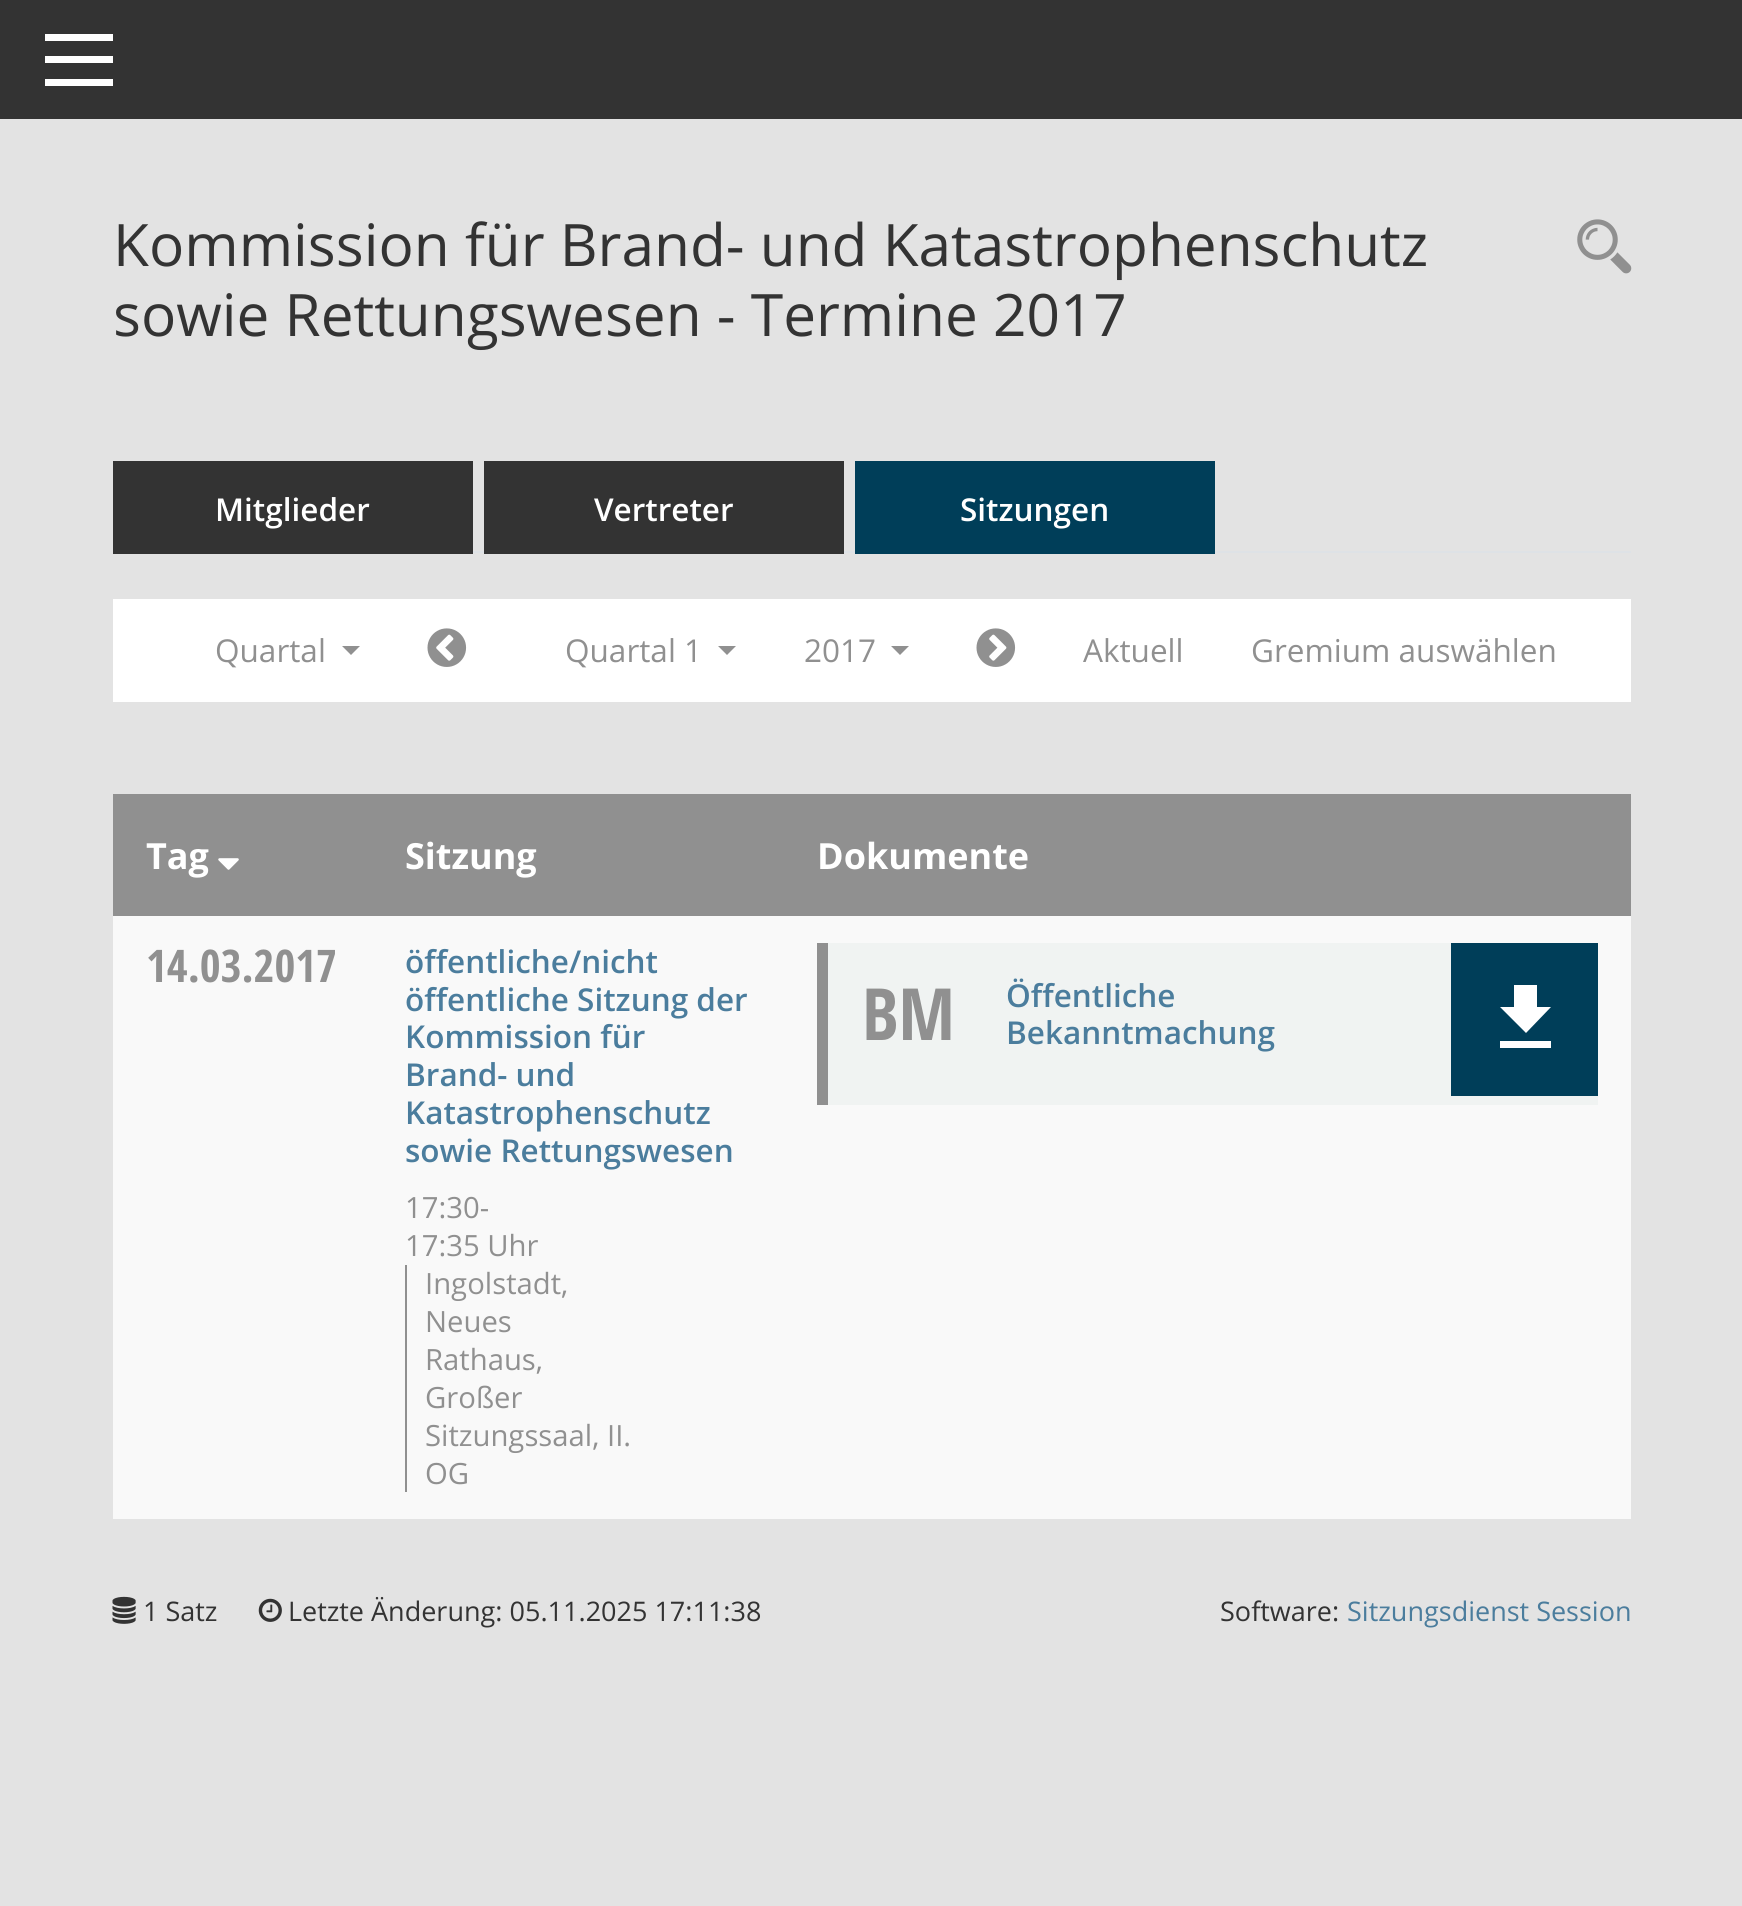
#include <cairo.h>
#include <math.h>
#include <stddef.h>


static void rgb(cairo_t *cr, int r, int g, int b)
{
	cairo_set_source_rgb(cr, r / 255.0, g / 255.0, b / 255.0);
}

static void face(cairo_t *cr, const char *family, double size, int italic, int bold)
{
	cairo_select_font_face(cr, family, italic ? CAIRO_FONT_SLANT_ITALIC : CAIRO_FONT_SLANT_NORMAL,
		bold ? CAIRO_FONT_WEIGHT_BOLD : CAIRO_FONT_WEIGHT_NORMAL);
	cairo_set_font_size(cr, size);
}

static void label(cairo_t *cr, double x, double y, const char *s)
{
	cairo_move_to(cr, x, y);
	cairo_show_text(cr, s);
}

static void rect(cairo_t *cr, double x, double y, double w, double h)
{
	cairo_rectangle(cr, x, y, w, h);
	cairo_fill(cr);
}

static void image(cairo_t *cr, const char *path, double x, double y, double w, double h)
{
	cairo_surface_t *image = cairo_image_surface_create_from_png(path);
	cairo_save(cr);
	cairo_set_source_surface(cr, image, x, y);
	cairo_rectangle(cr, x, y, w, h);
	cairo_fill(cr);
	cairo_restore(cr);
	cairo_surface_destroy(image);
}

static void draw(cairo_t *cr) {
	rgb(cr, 227, 227, 227);
	cairo_paint(cr);
	rgb(cr, 51, 51, 51);
	rect(cr, 0, 0, 1742, 119);
	rgb(cr, 255, 255, 255);
	rect(cr, 45, 34, 68, 7);
	rect(cr, 45, 56, 68, 7);
	rect(cr, 45, 79, 68, 7);
	face(cr, "Open Sans", 58.5, 0, 0);
	rgb(cr, 51, 51, 51);
	label(cr, 113, 266, "Kommission für Brand- und Katastrophenschutz");
	label(cr, 113, 336, "sowie Rettungswesen - Termine 2017");
	image(cr, "image0.png", 1577, 219, 55, 55);
	rgb(cr, 222, 226, 230);
	rect(cr, 473, 551, 1158, 2);
	rgb(cr, 51, 51, 51);
	rect(cr, 113, 461, 360, 93);
	face(cr, "Open Sans SemiBold", 31.5, 0, 0);
	rgb(cr, 255, 255, 255);
	label(cr, 215, 521, "Mitglieder");
	rgb(cr, 51, 51, 51);
	rect(cr, 484, 461, 360, 93);
	rgb(cr, 255, 255, 255);
	label(cr, 594, 521, "Vertreter");
	rgb(cr, 0, 62, 89);
	rect(cr, 855, 461, 360, 93);
	rgb(cr, 255, 255, 255);
	label(cr, 960, 521, "Sitzungen");
	rect(cr, 113, 599, 1518, 103);
	face(cr, "Open Sans", 31.5, 0, 0);
	rgb(cr, 144, 144, 144);
	label(cr, 215, 662, "Quartal");
	cairo_new_path(cr);
	cairo_move_to(cr, 342, 646);
	cairo_line_to(cr, 360, 646);
	cairo_line_to(cr, 351, 655);
	cairo_close_path(cr);
	cairo_fill(cr);
	image(cr, "image1.png", 427, 628, 40, 39);
	label(cr, 565, 662, "Quartal 1");
	cairo_new_path(cr);
	cairo_move_to(cr, 718, 646);
	cairo_line_to(cr, 736, 646);
	cairo_line_to(cr, 727, 655);
	cairo_close_path(cr);
	cairo_fill(cr);
	label(cr, 804, 662, "2017");
	cairo_new_path(cr);
	cairo_move_to(cr, 891, 646);
	cairo_line_to(cr, 909, 646);
	cairo_line_to(cr, 900, 655);
	cairo_close_path(cr);
	cairo_fill(cr);
	image(cr, "image2.png", 976, 628, 40, 39);
	label(cr, 1083, 662, "Aktuell");
	label(cr, 1251, 662, "Gremium auswählen");
	rect(cr, 113, 794, 1518, 122);
	face(cr, "Open Sans", 36, 0, 1);
	rgb(cr, 255, 255, 255);
	label(cr, 146, 869, "Tag");
	image(cr, "image3.png", 218, 858, 21, 12);
	label(cr, 405, 869, "Sitzung");
	label(cr, 817, 869, "Dokumente");
	rgb(cr, 249, 249, 249);
	rect(cr, 113, 916, 1518, 603);
	face(cr, "Open Sans Condensed", 45, 0, 1);
	rgb(cr, 144, 144, 144);
	label(cr, 146, 982, "14.03.2017");
	face(cr, "Open Sans SemiBold", 31.5, 0, 0);
	rgb(cr, 75, 125, 157);
	label(cr, 405, 973, "öffentliche/nicht");
	label(cr, 405, 1011, "öffentliche Sitzung der");
	label(cr, 405, 1048, "Kommission für");
	label(cr, 405, 1086, "Brand- und");
	label(cr, 405, 1124, "Katastrophenschutz");
	label(cr, 405, 1162, "sowie Rettungswesen");
	face(cr, "Open Sans", 29.25, 0, 0);
	rgb(cr, 144, 144, 144);
	label(cr, 405, 1218, "17:30-");
	label(cr, 405, 1256, "17:35 Uhr");
	rect(cr, 405, 1265, 2, 227);
	label(cr, 425, 1294, "Ingolstadt,");
	label(cr, 425, 1332, "Neues");
	label(cr, 425, 1370, "Rathaus,");
	label(cr, 425, 1408, "Großer");
	label(cr, 425, 1446, "Sitzungssaal, II.");
	label(cr, 425, 1484, "OG");
	rgb(cr, 240, 243, 242);
	rect(cr, 828, 943, 770, 162);
	rgb(cr, 144, 144, 144);
	rect(cr, 817, 943, 11, 162);
	face(cr, "Open Sans Condensed", 72, 0, 1);
	label(cr, 862, 1040, "BM");
	face(cr, "Open Sans SemiBold", 31.5, 0, 0);
	rgb(cr, 75, 125, 157);
	label(cr, 1006, 1007, "Öffentliche");
	label(cr, 1006, 1044, "Bekanntmachung");
	rgb(cr, 0, 62, 89);
	rect(cr, 1451, 943, 147, 153);
	rgb(cr, 255, 255, 255);
	cairo_new_path(cr);
	cairo_move_to(cr, 1551, 1007);
	cairo_line_to(cr, 1537, 1007);
	cairo_line_to(cr, 1537, 985);
	cairo_line_to(cr, 1514, 985);
	cairo_line_to(cr, 1514, 1007);
	cairo_line_to(cr, 1500, 1007);
	cairo_line_to(cr, 1526, 1033);
	cairo_close_path(cr);
	cairo_move_to(cr, 1500, 1041);
	cairo_line_to(cr, 1500, 1048);
	cairo_line_to(cr, 1551, 1048);
	cairo_line_to(cr, 1551, 1041);
	cairo_close_path(cr);
	cairo_fill(cr);
	image(cr, "image4.png", 112, 1596, 24, 28);
	face(cr, "Open Sans", 27, 0, 0);
	rgb(cr, 51, 51, 51);
	label(cr, 143, 1621, "1 Satz");
	image(cr, "image5.png", 258, 1598, 24, 24);
	label(cr, 288, 1621, "Letzte Änderung: 05.11.2025 17:11:38");
	label(cr, 1220, 1621, "Software:");
	rgb(cr, 75, 125, 157);
	label(cr, 1347, 1621, "Sitzungsdienst Session");
}

int main(void) {
	cairo_surface_t *surface = cairo_image_surface_create(CAIRO_FORMAT_RGB24, 1742, 1906);
	cairo_t *cr = cairo_create(surface);
	cairo_font_options_t *options = cairo_font_options_create();
	cairo_font_options_set_hint_metrics(options, CAIRO_HINT_METRICS_OFF);
	cairo_font_options_set_hint_style(options, CAIRO_HINT_STYLE_NONE);
	cairo_set_font_options(cr, options);
	cairo_set_miter_limit(cr, 4);
	draw(cr);
	cairo_surface_write_to_png(surface, "render.png");
	cairo_font_options_destroy(options);
	cairo_destroy(cr);
	cairo_surface_destroy(surface);
	return 0;
}
